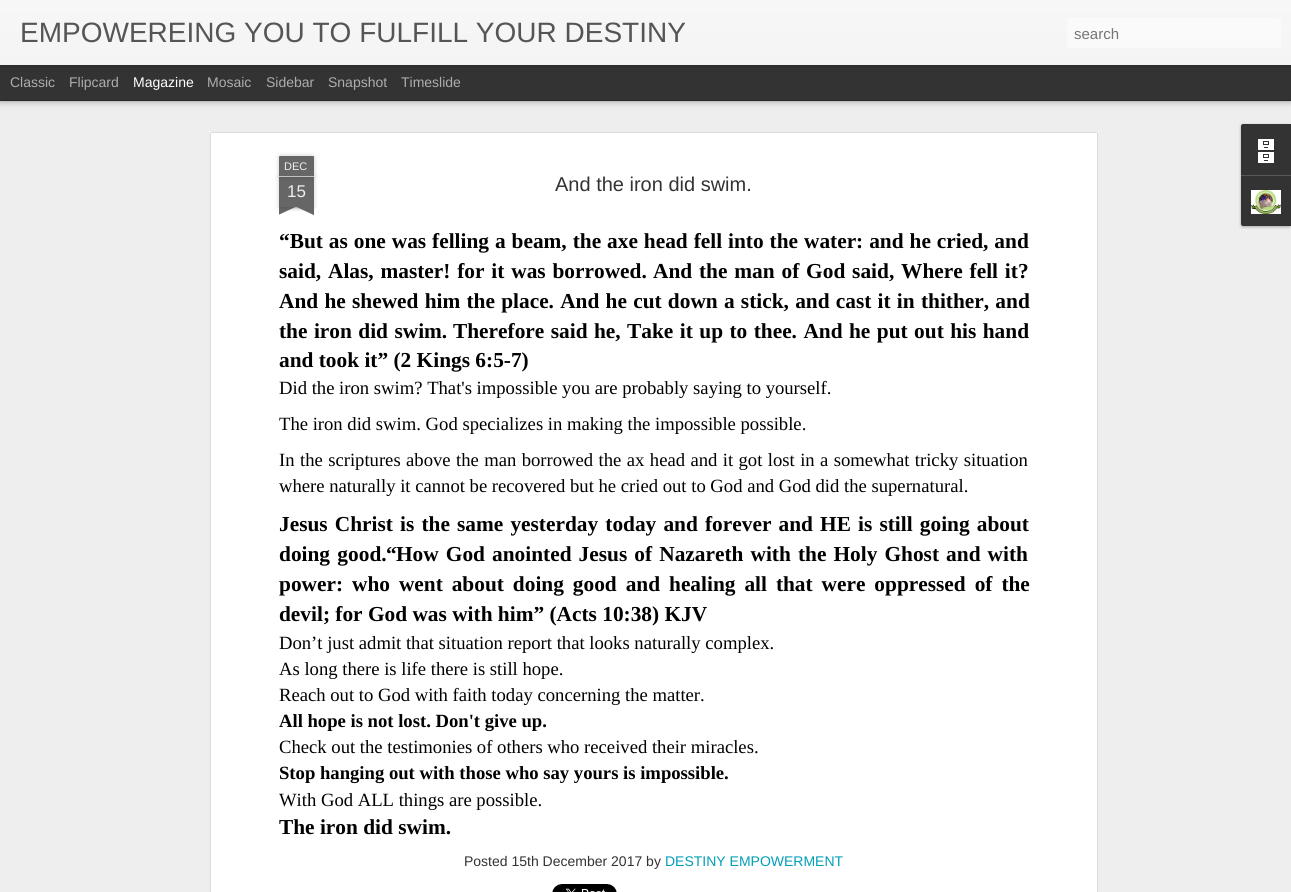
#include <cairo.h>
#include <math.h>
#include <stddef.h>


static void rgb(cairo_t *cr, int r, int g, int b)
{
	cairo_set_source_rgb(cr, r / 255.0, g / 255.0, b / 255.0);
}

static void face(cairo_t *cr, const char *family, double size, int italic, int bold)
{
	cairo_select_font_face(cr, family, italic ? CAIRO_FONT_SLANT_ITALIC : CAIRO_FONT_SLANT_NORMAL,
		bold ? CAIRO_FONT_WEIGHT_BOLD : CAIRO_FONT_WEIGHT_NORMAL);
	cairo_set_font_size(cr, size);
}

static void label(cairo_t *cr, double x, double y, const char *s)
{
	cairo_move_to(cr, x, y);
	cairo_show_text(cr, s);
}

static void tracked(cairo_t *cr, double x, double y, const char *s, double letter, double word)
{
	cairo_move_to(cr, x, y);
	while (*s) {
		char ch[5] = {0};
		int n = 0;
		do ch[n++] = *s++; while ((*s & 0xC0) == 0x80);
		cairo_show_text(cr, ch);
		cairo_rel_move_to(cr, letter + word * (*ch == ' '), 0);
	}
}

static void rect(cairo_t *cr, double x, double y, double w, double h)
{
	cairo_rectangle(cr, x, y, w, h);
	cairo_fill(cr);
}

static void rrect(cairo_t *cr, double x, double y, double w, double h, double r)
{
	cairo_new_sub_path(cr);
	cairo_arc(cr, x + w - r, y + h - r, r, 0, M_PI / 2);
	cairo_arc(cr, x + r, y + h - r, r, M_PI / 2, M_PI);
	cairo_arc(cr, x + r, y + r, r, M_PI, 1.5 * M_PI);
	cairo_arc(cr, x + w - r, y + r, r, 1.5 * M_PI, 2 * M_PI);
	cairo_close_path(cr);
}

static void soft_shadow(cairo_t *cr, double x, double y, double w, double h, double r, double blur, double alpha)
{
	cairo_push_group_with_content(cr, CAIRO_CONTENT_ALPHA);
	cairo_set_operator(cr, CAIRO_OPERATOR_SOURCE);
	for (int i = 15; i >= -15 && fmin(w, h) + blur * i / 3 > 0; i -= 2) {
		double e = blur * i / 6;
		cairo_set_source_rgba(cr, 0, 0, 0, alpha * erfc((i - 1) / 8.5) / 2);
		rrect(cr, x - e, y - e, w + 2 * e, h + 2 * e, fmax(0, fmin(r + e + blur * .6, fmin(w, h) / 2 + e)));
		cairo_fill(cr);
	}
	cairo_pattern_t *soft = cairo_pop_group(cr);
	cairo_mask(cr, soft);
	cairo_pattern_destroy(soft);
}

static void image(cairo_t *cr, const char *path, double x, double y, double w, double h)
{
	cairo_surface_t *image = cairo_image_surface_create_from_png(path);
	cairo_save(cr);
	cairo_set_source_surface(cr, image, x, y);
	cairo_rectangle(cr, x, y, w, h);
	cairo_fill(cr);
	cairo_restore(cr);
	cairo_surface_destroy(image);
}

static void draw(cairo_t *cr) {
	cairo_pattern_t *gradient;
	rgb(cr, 51, 51, 51);
	cairo_paint(cr);
	rgb(cr, 238, 238, 238);
	rect(cr, 0, 101, 1291, 791);
	rgb(cr, 0, 0, 0);
	soft_shadow(cr, 0, 65, 1291, 35, 0, 4, 0.5);
	rgb(cr, 51, 51, 51);
	rect(cr, 0, 65, 1291, 35);
	rgb(cr, 0, 0, 0);
	soft_shadow(cr, 0, 0, 1291, 65, 0, 2.5, 0.3);
	gradient = cairo_pattern_create_linear(0, 0, 0, 65);
	cairo_pattern_add_color_stop_rgba(gradient, 0, 0.969, 0.969, 0.969, 1);
	cairo_pattern_add_color_stop_rgba(gradient, 1, 0.957, 0.957, 0.957, 1);
	cairo_set_source(cr, gradient);
	cairo_pattern_destroy(gradient);
	rect(cr, 0, 0, 1291, 65);
	face(cr, "Liberation Sans", 28, 0, 0);
	rgb(cr, 85, 85, 85);
	label(cr, 20, 42, "EMPOWEREING YOU TO FULFILL YOUR DESTINY");
	rgb(cr, 250, 250, 250);
	rrect(cr, 1067, 18, 214, 30, 3);
	cairo_fill(cr);
	face(cr, "Liberation Sans", 15, 0, 0);
	rgb(cr, 117, 117, 117);
	label(cr, 1074, 39, "search");
	face(cr, "Liberation Sans", 14, 0, 0);
	rgb(cr, 173, 173, 173);
	label(cr, 10, 87, "Classic");
	label(cr, 69, 87, "Flipcard");
	rgb(cr, 255, 255, 255);
	label(cr, 133, 87, "Magazine");
	rgb(cr, 173, 173, 173);
	label(cr, 207, 87, "Mosaic");
	label(cr, 266, 87, "Sidebar");
	label(cr, 328, 87, "Snapshot");
	label(cr, 401, 87, "Timeslide");
	rgb(cr, 255, 255, 255);
	rect(cr, 209, 131, 890, 761);
	image(cr, "image0.png", 209, 131, 890, 761);
	rgb(cr, 0, 0, 0);
	soft_shadow(cr, 279, 177, 35, 30, 0, 2.5, 0.2);
	rgb(cr, 102, 102, 102);
	rect(cr, 279, 177, 35, 30);
	rgb(cr, 0, 0, 0);
	soft_shadow(cr, 279, 156, 35, 21, 1, 2.5, 0.2);
	rgb(cr, 102, 102, 102);
	cairo_new_path(cr);
	cairo_move_to(cr, 280, 156);
	cairo_line_to(cr, 313, 156);
	cairo_curve_to(cr, 313.5, 156, 314, 156.5, 314, 157);
	cairo_line_to(cr, 314, 177);
	cairo_line_to(cr, 279, 177);
	cairo_line_to(cr, 279, 157);
	cairo_curve_to(cr, 279, 156.5, 279.5, 156, 280, 156);
	cairo_close_path(cr);
	cairo_fill(cr);
	rgb(cr, 194, 194, 194);
	rect(cr, 279, 176, 35, 1);
	face(cr, "Liberation Sans", 11, 0, 0);
	rgb(cr, 238, 238, 238);
	label(cr, 284, 170, "DEC");
	face(cr, "Liberation Sans", 17, 0, 0);
	label(cr, 287, 197, "15");
	cairo_save(cr);
	cairo_rectangle(cr, 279, 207, 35, 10);
	cairo_clip(cr);
	rgb(cr, 0, 0, 0);
	soft_shadow(cr, 270, 197, 50, 10, 0, 2.5, 0.2);
	cairo_restore(cr);
	cairo_save(cr);
	cairo_rectangle(cr, 279, 207, 35, 10);
	cairo_clip(cr);
	rgb(cr, 102, 102, 102);
	cairo_new_path(cr);
	cairo_move_to(cr, 270, 208);
	cairo_line_to(cr, 315, 187);
	cairo_line_to(cr, 319, 196);
	cairo_line_to(cr, 274, 217);
	cairo_close_path(cr);
	cairo_fill(cr);
	cairo_restore(cr);
	cairo_save(cr);
	cairo_rectangle(cr, 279, 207, 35, 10);
	cairo_clip(cr);
	rgb(cr, 0, 0, 0);
	soft_shadow(cr, 273, 197, 50, 10, 0, 2.5, 0.2);
	cairo_restore(cr);
	cairo_save(cr);
	cairo_rectangle(cr, 279, 207, 35, 10);
	cairo_clip(cr);
	rgb(cr, 102, 102, 102);
	cairo_new_path(cr);
	cairo_move_to(cr, 277, 187);
	cairo_line_to(cr, 322, 208);
	cairo_line_to(cr, 318, 217);
	cairo_line_to(cr, 273, 196);
	cairo_close_path(cr);
	cairo_fill(cr);
	cairo_restore(cr);
	face(cr, "Liberation Sans", 20, 0, 0);
	rgb(cr, 51, 51, 51);
	label(cr, 555, 191, "And the iron did swim.");
	face(cr, "Liberation Serif", 21.35, 0, 1);
	rgb(cr, 0, 0, 0);
	tracked(cr, 279, 248, "“But as one was felling a beam, the axe head fell into the water: and he cried, and", 0, 0.6);
	tracked(cr, 279, 278, "said, Alas, master! for it was borrowed.", 0, 1.5);
	tracked(cr, 653, 278, "And the man of God said, Where fell it?", 0, 1.5);
	tracked(cr, 279, 308, "And he shewed him the place. And he cut down a stick, and cast it in thither, and", 0, 0.9);
	tracked(cr, 279, 338, "the iron did swim.", 0, 1.1);
	tracked(cr, 453, 338, "Therefore said he, Take it up to thee. And he put out his hand", 0, 1.1);
	label(cr, 279, 367, "and took it” (2 Kings 6:5-7)");
	face(cr, "Liberation Serif", 18.65, 0, 0);
	label(cr, 279, 394, "Did the iron swim? That's impossible you are probably saying to yourself.");
	label(cr, 279, 430, "The iron did swim. God specializes in making the impossible possible.");
	tracked(cr, 279, 466, "In the scriptures above the man borrowed the ax head and it got lost in a somewhat tricky situation", 0, 0.75);
	label(cr, 279, 492, "where naturally it cannot be recovered but he cried out to God and God did the supernatural.");
	face(cr, "Liberation Serif", 21.35, 0, 1);
	tracked(cr, 279, 531, "Jesus Christ is the same yesterday today and forever and HE is still going about", 0, 1.8);
	tracked(cr, 279, 561, "doing good.", 0, 2);
	label(cr, 386, 561, "“");
	tracked(cr, 396, 561, "How God anointed Jesus of Nazareth with the Holy Ghost and with", 0, 1.75);
	tracked(cr, 279, 591, "power: who went about doing good and healing all that were oppressed of the", 0, 3.6);
	label(cr, 279, 621, "devil; for God was with him” (Acts 10:38) KJV");
	face(cr, "Liberation Serif", 18.65, 0, 0);
	label(cr, 279, 649, "Don’t just admit that situation report that looks naturally complex.");
	label(cr, 279, 675, "As long there is life there is still hope.");
	label(cr, 279, 701, "Reach out to God with faith today concerning the matter.");
	face(cr, "Liberation Serif", 18.65, 0, 1);
	label(cr, 279, 727, "All hope is not lost. Don't give up.");
	face(cr, "Liberation Serif", 18.65, 0, 0);
	label(cr, 279, 753, "Check out the testimonies of others who received their miracles.");
	face(cr, "Liberation Serif", 18.65, 0, 1);
	label(cr, 279, 779, "Stop hanging out with those who say yours is impossible.");
	face(cr, "Liberation Serif", 18.65, 0, 0);
	label(cr, 279, 806, "With God ALL things are possible.");
	face(cr, "Liberation Serif", 21.35, 0, 1);
	label(cr, 279, 834, "The iron did swim.");
	face(cr, "Liberation Sans", 14, 0, 0);
	rgb(cr, 51, 51, 51);
	label(cr, 464, 866, "Posted 15th December 2017 by");
	rgb(cr, 0, 158, 184);
	label(cr, 665, 866, "DESTINY EMPOWERMENT");
	image(cr, "image1.png", 552, 884, 65, 8);
	rgb(cr, 0, 0, 0);
	soft_shadow(cr, 1241, 125, 50, 102, 2, 1.5, 0.3);
	rgb(cr, 51, 51, 51);
	cairo_new_path(cr);
	cairo_move_to(cr, 1243, 124);
	cairo_line_to(cr, 1291, 124);
	cairo_line_to(cr, 1291, 175);
	cairo_line_to(cr, 1241, 175);
	cairo_line_to(cr, 1241, 126);
	cairo_curve_to(cr, 1241, 125, 1242, 124, 1243, 124);
	cairo_close_path(cr);
	cairo_fill(cr);
	image(cr, "image2.png", 1258, 139, 16, 24);
	cairo_new_path(cr);
	cairo_move_to(cr, 1241, 175);
	cairo_line_to(cr, 1291, 175);
	cairo_line_to(cr, 1291, 226);
	cairo_line_to(cr, 1243, 226);
	cairo_curve_to(cr, 1242, 226, 1241, 225, 1241, 224);
	cairo_close_path(cr);
	cairo_fill(cr);
	rgb(cr, 88, 88, 88);
	rect(cr, 1241, 175, 50, 1);
	image(cr, "image3.png", 1251, 190, 30, 24);
}

int main(void) {
	cairo_surface_t *surface = cairo_image_surface_create(CAIRO_FORMAT_RGB24, 1291, 892);
	cairo_t *cr = cairo_create(surface);
	cairo_font_options_t *options = cairo_font_options_create();
	cairo_font_options_set_hint_metrics(options, CAIRO_HINT_METRICS_OFF);
	cairo_font_options_set_hint_style(options, CAIRO_HINT_STYLE_NONE);
	cairo_set_font_options(cr, options);
	cairo_set_miter_limit(cr, 4);
	draw(cr);
	cairo_surface_write_to_png(surface, "render.png");
	cairo_font_options_destroy(options);
	cairo_destroy(cr);
	cairo_surface_destroy(surface);
	return 0;
}
